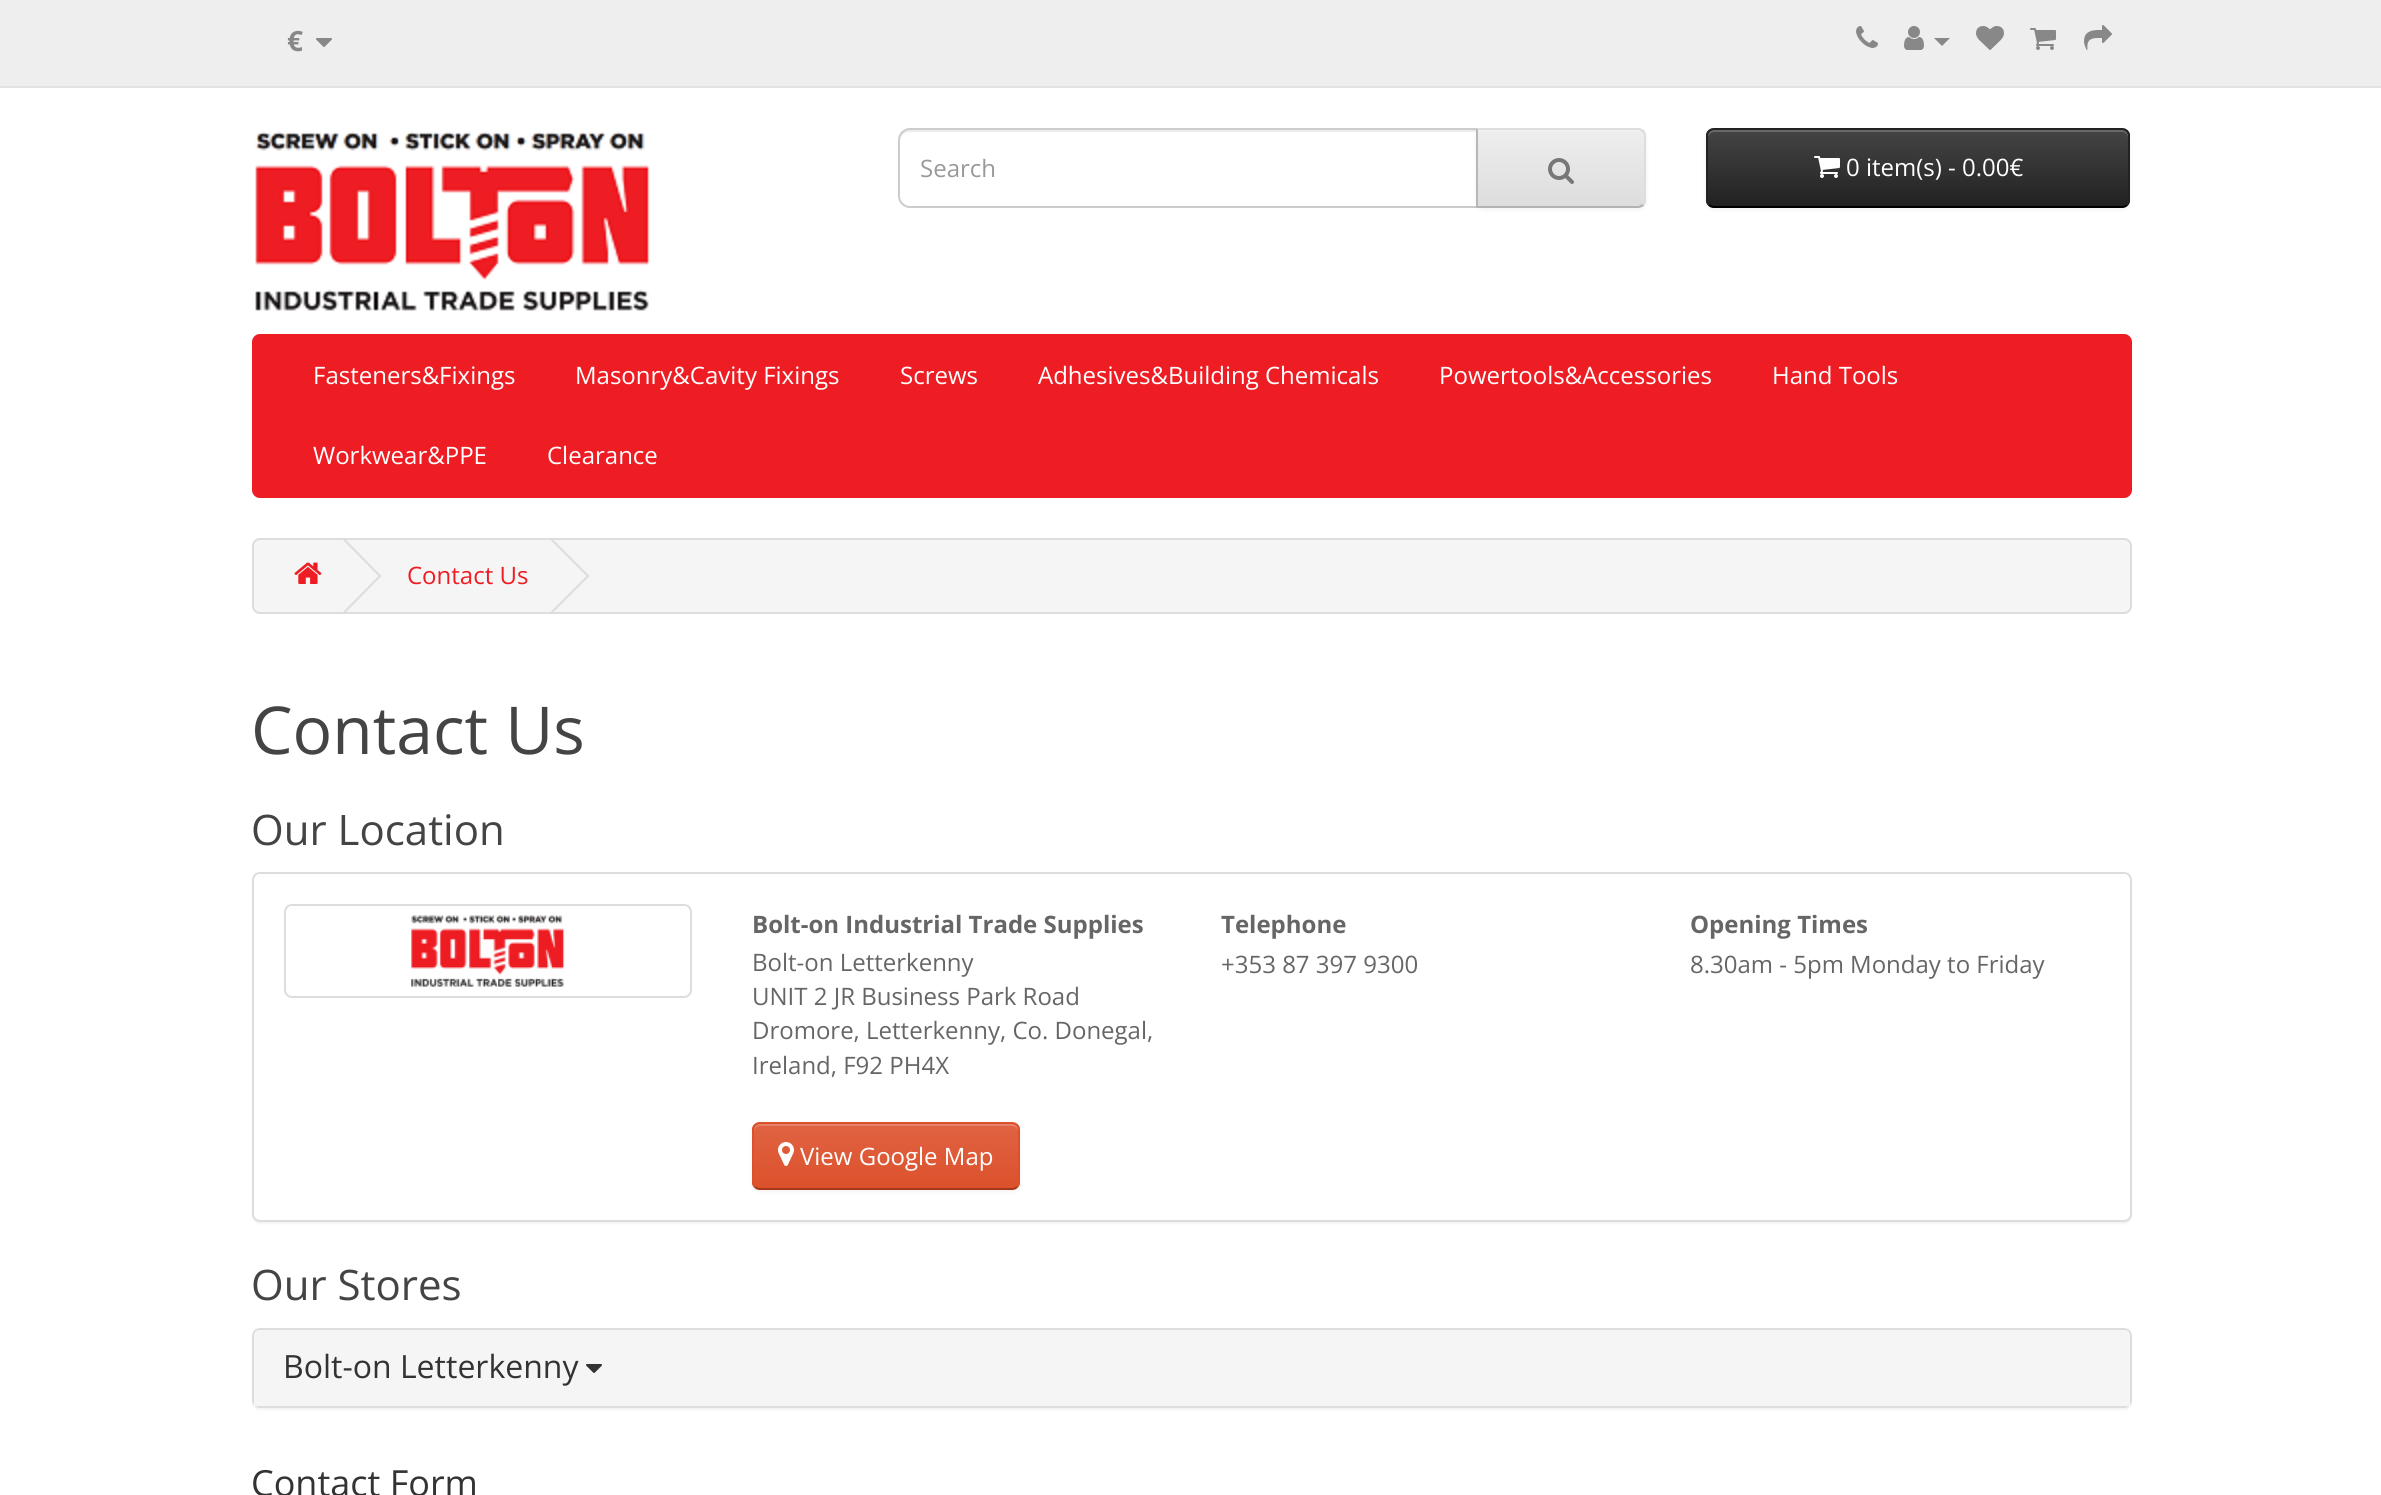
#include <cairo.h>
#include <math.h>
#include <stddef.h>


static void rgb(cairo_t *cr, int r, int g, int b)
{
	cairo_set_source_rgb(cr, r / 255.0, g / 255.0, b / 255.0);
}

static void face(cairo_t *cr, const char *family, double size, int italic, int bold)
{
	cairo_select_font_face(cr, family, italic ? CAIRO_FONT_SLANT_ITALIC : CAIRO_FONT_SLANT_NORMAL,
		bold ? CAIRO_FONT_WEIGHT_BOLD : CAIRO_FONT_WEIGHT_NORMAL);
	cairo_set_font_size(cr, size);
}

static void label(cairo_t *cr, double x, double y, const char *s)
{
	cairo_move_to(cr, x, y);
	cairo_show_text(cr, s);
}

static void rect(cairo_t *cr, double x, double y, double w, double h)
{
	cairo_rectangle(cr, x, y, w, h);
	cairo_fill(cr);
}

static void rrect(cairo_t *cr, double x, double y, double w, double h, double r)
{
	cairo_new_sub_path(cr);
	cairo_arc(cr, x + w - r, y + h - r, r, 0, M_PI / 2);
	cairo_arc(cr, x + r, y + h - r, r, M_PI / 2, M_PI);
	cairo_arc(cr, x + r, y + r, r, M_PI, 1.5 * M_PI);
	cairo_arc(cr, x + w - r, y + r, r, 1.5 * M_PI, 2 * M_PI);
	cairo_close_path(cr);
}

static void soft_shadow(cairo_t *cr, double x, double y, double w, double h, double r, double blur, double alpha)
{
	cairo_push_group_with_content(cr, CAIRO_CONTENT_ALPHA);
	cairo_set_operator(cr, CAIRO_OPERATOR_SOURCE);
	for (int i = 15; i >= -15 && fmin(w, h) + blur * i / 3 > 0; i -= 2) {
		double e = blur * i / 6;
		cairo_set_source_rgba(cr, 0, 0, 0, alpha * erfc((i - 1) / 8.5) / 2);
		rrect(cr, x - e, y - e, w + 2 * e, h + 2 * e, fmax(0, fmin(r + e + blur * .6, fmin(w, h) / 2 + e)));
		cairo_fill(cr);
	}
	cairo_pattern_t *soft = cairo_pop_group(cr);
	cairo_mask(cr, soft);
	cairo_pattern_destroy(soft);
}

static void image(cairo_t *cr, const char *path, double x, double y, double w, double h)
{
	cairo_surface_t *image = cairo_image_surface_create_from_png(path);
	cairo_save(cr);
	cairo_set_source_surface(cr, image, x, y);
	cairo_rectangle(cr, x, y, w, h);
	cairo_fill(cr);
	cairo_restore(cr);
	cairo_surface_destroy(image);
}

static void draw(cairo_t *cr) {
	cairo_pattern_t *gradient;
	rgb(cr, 255, 255, 255);
	cairo_paint(cr);
	rgb(cr, 238, 238, 238);
	rect(cr, 0, 0, 2381, 86);
	rgb(cr, 226, 226, 226);
	rect(cr, 0, 86, 2381, 2);
	face(cr, "Open Sans", 28, 0, 1);
	rgb(cr, 136, 136, 136);
	label(cr, 287, 51, "€");
	image(cr, "image0.png", 316, 38, 16, 9);
	image(cr, "image1.png", 1856, 26, 22, 22);
	image(cr, "image2.png", 1904, 26, 20, 24);
	cairo_new_path(cr);
	cairo_move_to(cr, 1934, 38);
	cairo_line_to(cr, 1950, 38);
	cairo_line_to(cr, 1942, 46);
	cairo_close_path(cr);
	cairo_fill(cr);
	image(cr, "image3.png", 1976, 26, 28, 24);
	image(cr, "image4.png", 2030, 28, 26, 22);
	image(cr, "image5.png", 2084, 25, 28, 25);
	image(cr, "image6.png", 255, 131, 396, 180);
	rgb(cr, 236, 236, 236);
	cairo_new_path(cr);
	cairo_move_to(cr, 910, 132);
	cairo_line_to(cr, 1476, 132);
	cairo_line_to(cr, 1476, 130);
	cairo_line_to(cr, 910, 130);
	cairo_curve_to(cr, 904, 130, 900, 134, 900, 140);
	cairo_line_to(cr, 900, 142);
	cairo_curve_to(cr, 900, 136, 904, 132, 910, 132);
	cairo_close_path(cr);
	cairo_fill(cr);
	cairo_new_path(cr);
	cairo_move_to(cr, 910, 129);
	cairo_line_to(cr, 1477, 129);
	cairo_line_to(cr, 1477, 207);
	cairo_line_to(cr, 910, 207);
	cairo_curve_to(cr, 904, 207, 899, 202, 899, 196);
	cairo_line_to(cr, 899, 140);
	cairo_curve_to(cr, 899, 134, 904, 129, 910, 129);
	cairo_close_path(cr);
	rgb(cr, 204, 204, 204);
	cairo_stroke(cr);
	face(cr, "Open Sans", 24, 0, 0);
	rgb(cr, 153, 153, 153);
	label(cr, 920, 177, "Search");
	rgb(cr, 0, 0, 0);
	soft_shadow(cr, 1476, 130, 170, 80, 8, 2, 0.05);
	cairo_save(cr);
	cairo_new_path(cr);
	cairo_move_to(cr, 1476, 128);
	cairo_line_to(cr, 1638, 128);
	cairo_curve_to(cr, 1642.5, 128, 1646, 131.5, 1646, 136);
	cairo_line_to(cr, 1646, 200);
	cairo_curve_to(cr, 1646, 204.5, 1642.5, 208, 1638, 208);
	cairo_line_to(cr, 1476, 208);
	cairo_close_path(cr);
	cairo_clip(cr);
	gradient = cairo_pattern_create_linear(1561, 130, 1561, 206);
	cairo_pattern_add_color_stop_rgba(gradient, 0, 0.933, 0.933, 0.933, 1);
	cairo_pattern_add_color_stop_rgba(gradient, 1, 0.867, 0.867, 0.867, 1);
	cairo_set_source(cr, gradient);
	cairo_pattern_destroy(gradient);
	rect(cr, 1478, 130, 168, 76);
	cairo_restore(cr);
	rgb(cr, 241, 241, 241);
	cairo_new_path(cr);
	cairo_move_to(cr, 1478, 132);
	cairo_line_to(cr, 1638, 132);
	cairo_curve_to(cr, 1641, 132, 1644, 135, 1644, 138);
	cairo_line_to(cr, 1644, 136);
	cairo_curve_to(cr, 1644, 133, 1641, 130, 1638, 130);
	cairo_line_to(cr, 1478, 130);
	cairo_close_path(cr);
	cairo_fill(cr);
	rgb(cr, 221, 221, 221);
	cairo_new_path(cr);
	cairo_move_to(cr, 1476, 128);
	cairo_line_to(cr, 1478, 130);
	cairo_line_to(cr, 1639, 130);
	cairo_line_to(cr, 1642, 132);
	cairo_line_to(cr, 1644, 130);
	cairo_curve_to(cr, 1642, 129, 1640, 128, 1638, 128);
	cairo_close_path(cr);
	cairo_fill(cr);
	cairo_new_path(cr);
	cairo_move_to(cr, 1646, 200);
	cairo_line_to(cr, 1646, 136);
	cairo_curve_to(cr, 1646, 134, 1645, 132, 1644, 130);
	cairo_line_to(cr, 1642, 132);
	cairo_curve_to(cr, 1643, 133, 1644, 134, 1644, 136);
	cairo_line_to(cr, 1644, 200);
	cairo_curve_to(cr, 1644, 202, 1643, 203, 1642, 204);
	cairo_line_to(cr, 1644, 206);
	cairo_curve_to(cr, 1645, 204, 1646, 202, 1646, 200);
	cairo_close_path(cr);
	cairo_fill(cr);
	rgb(cr, 179, 179, 179);
	cairo_new_path(cr);
	cairo_move_to(cr, 1638, 208);
	cairo_curve_to(cr, 1640, 208, 1642, 207, 1644, 206);
	cairo_line_to(cr, 1642, 204);
	cairo_line_to(cr, 1639, 206);
	cairo_line_to(cr, 1478, 206);
	cairo_line_to(cr, 1476, 208);
	cairo_close_path(cr);
	cairo_fill(cr);
	rgb(cr, 183, 183, 183);
	cairo_new_path(cr);
	cairo_move_to(cr, 1476, 128);
	cairo_line_to(cr, 1476, 208);
	cairo_line_to(cr, 1478, 206);
	cairo_line_to(cr, 1478, 130);
	cairo_close_path(cr);
	cairo_fill(cr);
	image(cr, "image7.png", 1548, 158, 26, 26);
	rgb(cr, 0, 0, 0);
	soft_shadow(cr, 1706, 130, 424, 80, 8, 2, 0.05);
	cairo_save(cr);
	rrect(cr, 1706, 128, 424, 80, 8);
	cairo_clip(cr);
	gradient = cairo_pattern_create_linear(1918, 130, 1918, 206);
	cairo_pattern_add_color_stop_rgba(gradient, 0, 0.267, 0.267, 0.267, 1);
	cairo_pattern_add_color_stop_rgba(gradient, 1, 0.133, 0.133, 0.133, 1);
	cairo_set_source(cr, gradient);
	cairo_pattern_destroy(gradient);
	rect(cr, 1706, 130, 424, 76);
	cairo_restore(cr);
	rgb(cr, 105, 105, 105);
	cairo_new_path(cr);
	cairo_move_to(cr, 1714, 132);
	cairo_line_to(cr, 2122, 132);
	cairo_curve_to(cr, 2125, 132, 2128, 135, 2128, 138);
	cairo_line_to(cr, 2128, 136);
	cairo_curve_to(cr, 2128, 133, 2125, 130, 2122, 130);
	cairo_line_to(cr, 1714, 130);
	cairo_curve_to(cr, 1711, 130, 1708, 133, 1708, 136);
	cairo_line_to(cr, 1708, 138);
	cairo_curve_to(cr, 1708, 135, 1711, 132, 1714, 132);
	cairo_close_path(cr);
	cairo_fill(cr);
	cairo_new_path(cr);
	cairo_move_to(cr, 2127, 205);
	cairo_curve_to(cr, 2125.5, 206.5, 2124, 207, 2122, 207);
	cairo_line_to(cr, 1714, 207);
	cairo_curve_to(cr, 1712, 207, 1710.5, 206.5, 1709, 205);
	rgb(cr, 0, 0, 0);
	cairo_stroke(cr);
	cairo_new_path(cr);
	cairo_move_to(cr, 1709, 205);
	cairo_curve_to(cr, 1707.5, 203.5, 1707, 202, 1707, 200);
	cairo_line_to(cr, 1707, 136);
	cairo_curve_to(cr, 1707, 134, 1707.5, 132.5, 1709, 131);
	cairo_curve_to(cr, 1710.5, 129.5, 1712, 129, 1714, 129);
	cairo_line_to(cr, 2122, 129);
	cairo_curve_to(cr, 2124, 129, 2125.5, 129.5, 2127, 131);
	cairo_curve_to(cr, 2128.5, 132.5, 2129, 134, 2129, 136);
	cairo_line_to(cr, 2129, 200);
	cairo_curve_to(cr, 2129, 202, 2128.5, 203.5, 2127, 205);
	rgb(cr, 34, 34, 34);
	cairo_stroke(cr);
	image(cr, "image8.png", 1814, 156, 26, 22);
	rgb(cr, 255, 255, 255);
	label(cr, 1846, 176, "0 item(s) - 0.00€");
	rgb(cr, 238, 29, 35);
	rrect(cr, 252, 334, 1880, 164, 8);
	cairo_fill(cr);
	rgb(cr, 255, 255, 255);
	label(cr, 313, 384, "Fasteners&Fixings");
	label(cr, 575, 384, "Masonry&Cavity Fixings");
	label(cr, 900, 384, "Screws");
	label(cr, 1038, 384, "Adhesives&Building Chemicals");
	label(cr, 1439, 384, "Powertools&Accessories");
	label(cr, 1772, 384, "Hand Tools");
	label(cr, 313, 464, "Workwear&PPE");
	label(cr, 547, 464, "Clearance");
	rgb(cr, 245, 245, 245);
	rrect(cr, 253, 539, 1878, 74, 7);
	cairo_fill_preserve(cr);
	rgb(cr, 221, 221, 221);
	cairo_stroke(cr);
	image(cr, "image9.png", 294, 562, 28, 22);
	cairo_new_path(cr);
	cairo_move_to(cr, 343.5, 540.5);
	cairo_line_to(cr, 345, 539);
	cairo_line_to(cr, 381.5, 576);
	cairo_line_to(cr, 380, 577.5);
	cairo_close_path(cr);
	cairo_fill(cr);
	cairo_new_path(cr);
	cairo_move_to(cr, 343.5, 611.5);
	cairo_line_to(cr, 380, 574.5);
	cairo_line_to(cr, 381.5, 576);
	cairo_line_to(cr, 345, 613);
	cairo_close_path(cr);
	cairo_fill(cr);
	rgb(cr, 238, 29, 35);
	label(cr, 407, 584, "Contact Us");
	rgb(cr, 221, 221, 221);
	cairo_new_path(cr);
	cairo_move_to(cr, 551, 540.5);
	cairo_line_to(cr, 552.5, 539);
	cairo_line_to(cr, 589.5, 576);
	cairo_line_to(cr, 588, 577.5);
	cairo_close_path(cr);
	cairo_fill(cr);
	cairo_new_path(cr);
	cairo_move_to(cr, 551, 611.5);
	cairo_line_to(cr, 588, 574.5);
	cairo_line_to(cr, 589.5, 576);
	cairo_line_to(cr, 552.5, 613);
	cairo_close_path(cr);
	cairo_fill(cr);
	face(cr, "Open Sans", 66, 0, 0);
	rgb(cr, 68, 68, 68);
	label(cr, 251, 754, "Contact Us");
	face(cr, "Open Sans", 42, 0, 0);
	label(cr, 251, 845, "Our Location");
	rgb(cr, 0, 0, 0);
	soft_shadow(cr, 252, 874, 1880, 350, 8, 1, 0.05);
	rgb(cr, 255, 255, 255);
	rrect(cr, 253, 873, 1878, 348, 7);
	cairo_fill_preserve(cr);
	rgb(cr, 221, 221, 221);
	cairo_stroke(cr);
	rrect(cr, 285, 905, 406, 92, 7);
	cairo_stroke(cr);
	image(cr, "image10.png", 411, 915, 154, 72);
	face(cr, "Open Sans", 24, 0, 1);
	rgb(cr, 102, 102, 102);
	label(cr, 752, 933, "Bolt-on Industrial Trade Supplies");
	face(cr, "Open Sans", 24, 0, 0);
	label(cr, 752, 971, "Bolt-on Letterkenny");
	label(cr, 752, 1005, "UNIT 2 JR Business Park Road");
	label(cr, 752, 1039, "Dromore, Letterkenny, Co. Donegal,");
	label(cr, 752, 1074, "Ireland, F92 PH4X");
	rgb(cr, 0, 0, 0);
	soft_shadow(cr, 752, 1124, 268, 68, 8, 2, 0.05);
	cairo_save(cr);
	rrect(cr, 752, 1122, 268, 68, 8);
	cairo_clip(cr);
	gradient = cairo_pattern_create_linear(886, 1124, 886, 1188);
	cairo_pattern_add_color_stop_rgba(gradient, 0, 0.878, 0.388, 0.259, 1);
	cairo_pattern_add_color_stop_rgba(gradient, 1, 0.863, 0.318, 0.173, 1);
	cairo_set_source(cr, gradient);
	cairo_pattern_destroy(gradient);
	rect(cr, 752, 1124, 268, 64);
	cairo_restore(cr);
	rgb(cr, 230, 130, 103);
	cairo_new_path(cr);
	cairo_move_to(cr, 760, 1126);
	cairo_line_to(cr, 1012, 1126);
	cairo_curve_to(cr, 1015, 1126, 1018, 1129, 1018, 1132);
	cairo_curve_to(cr, 1018, 1129, 1017, 1125, 1013, 1124);
	cairo_line_to(cr, 759, 1124);
	cairo_curve_to(cr, 755, 1125, 754, 1129, 754, 1132);
	cairo_curve_to(cr, 754, 1129, 757, 1126, 760, 1126);
	cairo_close_path(cr);
	cairo_fill(cr);
	cairo_new_path(cr);
	cairo_move_to(cr, 1017, 1187);
	cairo_curve_to(cr, 1015.5, 1188.5, 1014, 1189, 1012, 1189);
	cairo_line_to(cr, 760, 1189);
	cairo_curve_to(cr, 758, 1189, 756.5, 1188.5, 755, 1187);
	rgb(cr, 162, 55, 26);
	cairo_stroke(cr);
	cairo_new_path(cr);
	cairo_move_to(cr, 755, 1187);
	cairo_curve_to(cr, 753.5, 1185.5, 753, 1184, 753, 1182);
	cairo_line_to(cr, 753, 1130);
	cairo_curve_to(cr, 753, 1128, 753.5, 1126.5, 755, 1125);
	cairo_curve_to(cr, 756.5, 1123.5, 758, 1123, 760, 1123);
	cairo_line_to(cr, 1012, 1123);
	cairo_curve_to(cr, 1014, 1123, 1015.5, 1123.5, 1017, 1125);
	cairo_curve_to(cr, 1018.5, 1126.5, 1019, 1128, 1019, 1130);
	cairo_line_to(cr, 1019, 1182);
	cairo_curve_to(cr, 1019, 1184, 1018.5, 1185.5, 1017, 1187);
	rgb(cr, 220, 81, 44);
	cairo_stroke(cr);
	image(cr, "image11.png", 778, 1142, 16, 24);
	rgb(cr, 255, 255, 255);
	label(cr, 800, 1165, "View Google Map");
	face(cr, "Open Sans", 24, 0, 1);
	rgb(cr, 102, 102, 102);
	label(cr, 1221, 933, "Telephone");
	face(cr, "Open Sans", 24, 0, 0);
	label(cr, 1221, 973, "+353 87 397 9300");
	face(cr, "Open Sans", 24, 0, 1);
	label(cr, 1690, 933, "Opening Times");
	face(cr, "Open Sans", 24, 0, 0);
	label(cr, 1690, 973, "8.30am - 5pm Monday to Friday");
	face(cr, "Open Sans", 42, 0, 0);
	rgb(cr, 68, 68, 68);
	label(cr, 251, 1300, "Our Stores");
	rgb(cr, 0, 0, 0);
	soft_shadow(cr, 252, 1330, 1880, 80, 8, 1, 0.05);
	rrect(cr, 253, 1329, 1878, 78, 7);
	rgb(cr, 221, 221, 221);
	cairo_stroke(cr);
	rgb(cr, 245, 245, 245);
	cairo_new_path(cr);
	cairo_move_to(cr, 260, 1330);
	cairo_line_to(cr, 2124, 1330);
	cairo_curve_to(cr, 2127.5, 1330, 2130, 1332.5, 2130, 1336);
	cairo_line_to(cr, 2130, 1406);
	cairo_line_to(cr, 254, 1406);
	cairo_line_to(cr, 254, 1336);
	cairo_curve_to(cr, 254, 1332.5, 256.5, 1330, 260, 1330);
	cairo_close_path(cr);
	cairo_fill(cr);
	face(cr, "Open Sans", 32, 0, 0);
	rgb(cr, 51, 51, 51);
	label(cr, 283, 1378, "Bolt-on Letterkenny");
	image(cr, "image12.png", 586, 1364, 16, 9);
	face(cr, "Open Sans", 36, 0, 0);
	label(cr, 251, 1496, "Contact Form");
}

int main(void) {
	cairo_surface_t *surface = cairo_image_surface_create(CAIRO_FORMAT_RGB24, 2381, 1495);
	cairo_t *cr = cairo_create(surface);
	cairo_font_options_t *options = cairo_font_options_create();
	cairo_font_options_set_hint_metrics(options, CAIRO_HINT_METRICS_OFF);
	cairo_font_options_set_hint_style(options, CAIRO_HINT_STYLE_NONE);
	cairo_set_font_options(cr, options);
	cairo_set_miter_limit(cr, 4);
	draw(cr);
	cairo_surface_write_to_png(surface, "render.png");
	cairo_font_options_destroy(options);
	cairo_destroy(cr);
	cairo_surface_destroy(surface);
	return 0;
}
